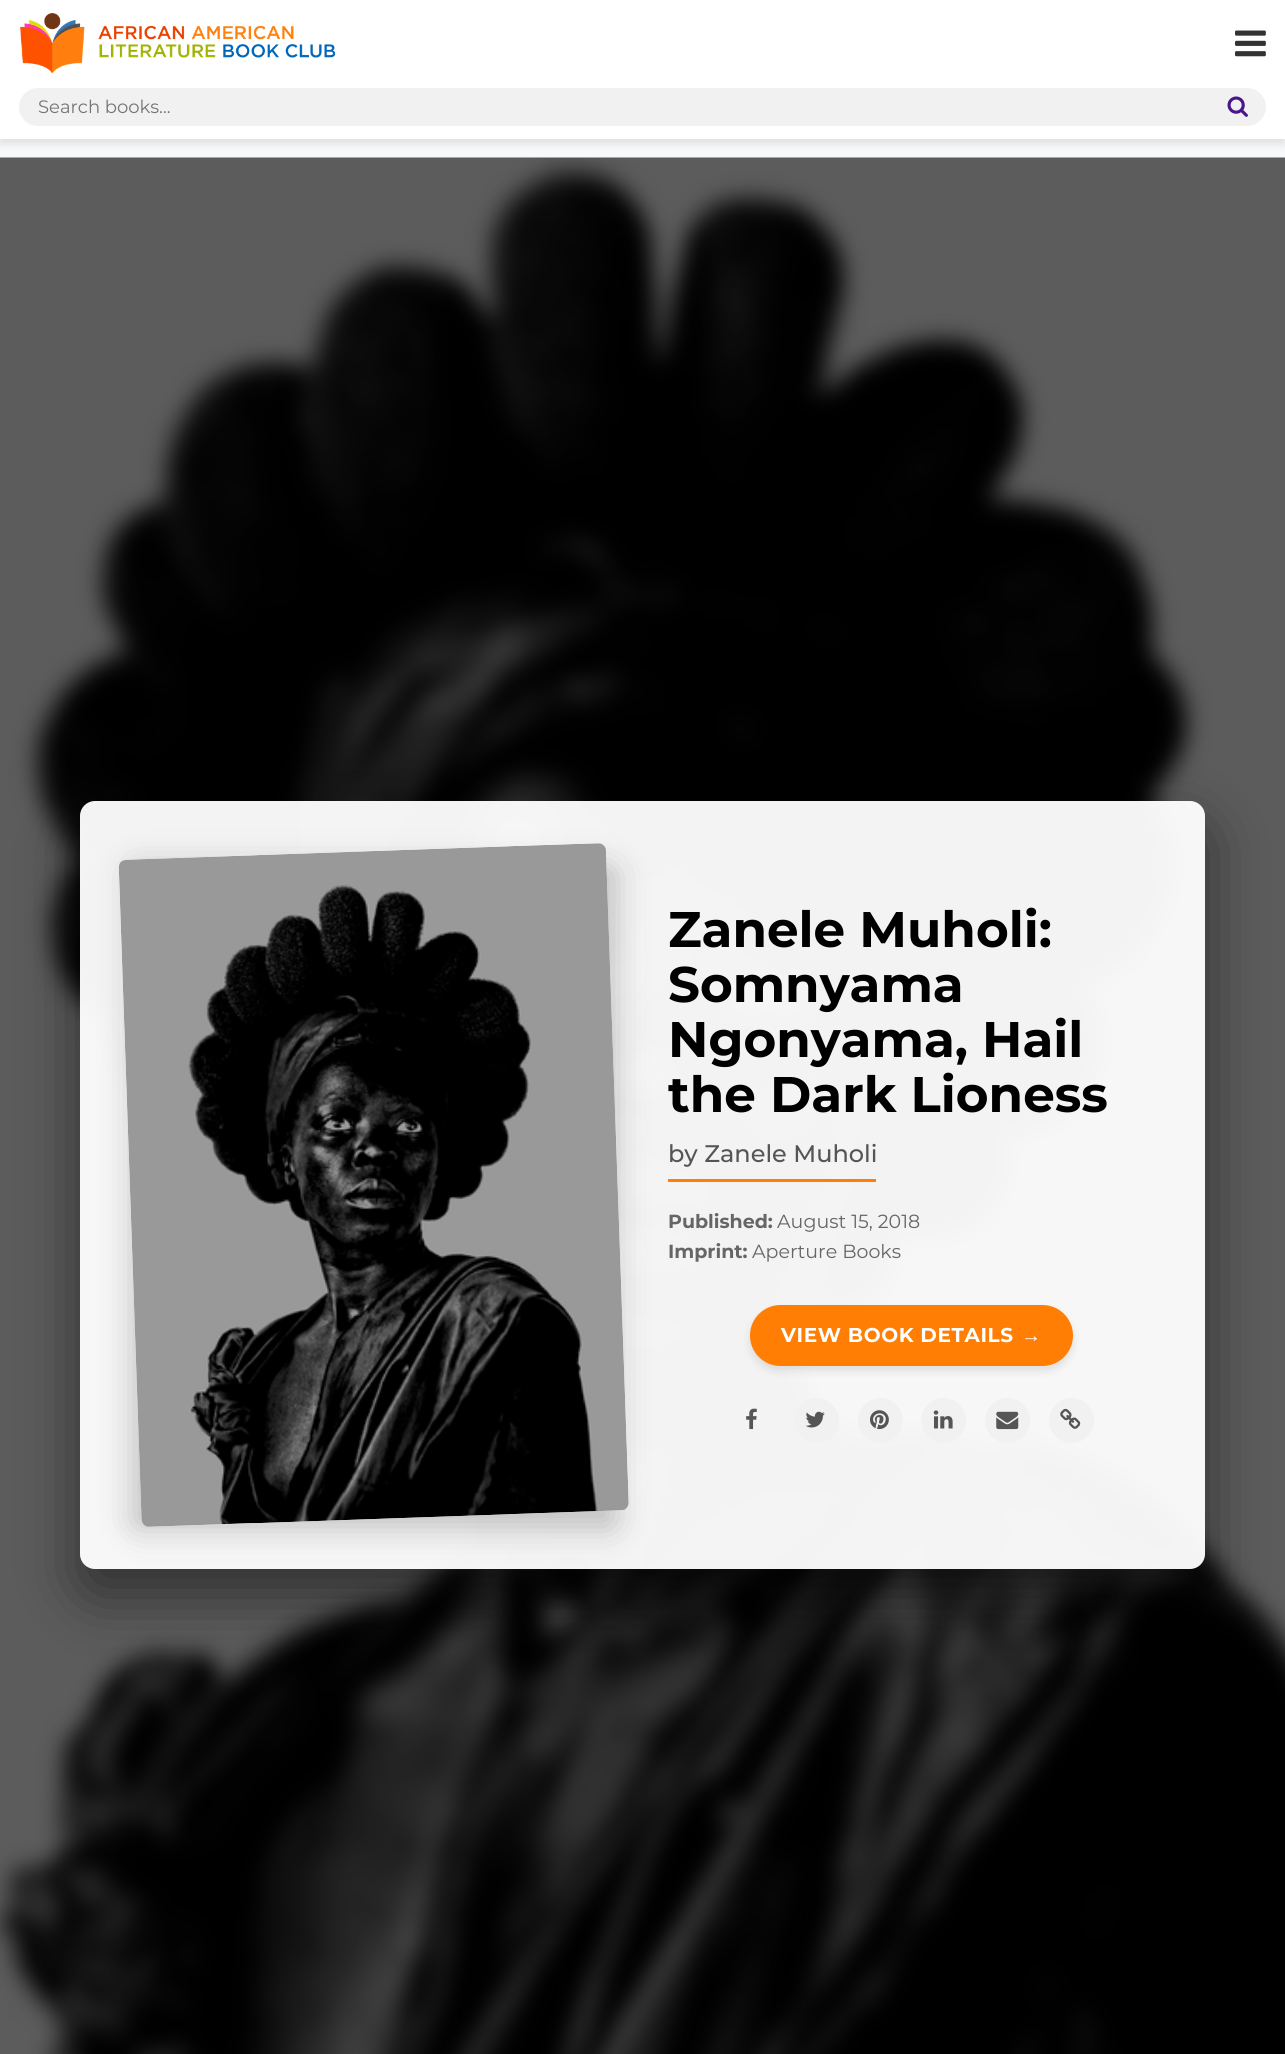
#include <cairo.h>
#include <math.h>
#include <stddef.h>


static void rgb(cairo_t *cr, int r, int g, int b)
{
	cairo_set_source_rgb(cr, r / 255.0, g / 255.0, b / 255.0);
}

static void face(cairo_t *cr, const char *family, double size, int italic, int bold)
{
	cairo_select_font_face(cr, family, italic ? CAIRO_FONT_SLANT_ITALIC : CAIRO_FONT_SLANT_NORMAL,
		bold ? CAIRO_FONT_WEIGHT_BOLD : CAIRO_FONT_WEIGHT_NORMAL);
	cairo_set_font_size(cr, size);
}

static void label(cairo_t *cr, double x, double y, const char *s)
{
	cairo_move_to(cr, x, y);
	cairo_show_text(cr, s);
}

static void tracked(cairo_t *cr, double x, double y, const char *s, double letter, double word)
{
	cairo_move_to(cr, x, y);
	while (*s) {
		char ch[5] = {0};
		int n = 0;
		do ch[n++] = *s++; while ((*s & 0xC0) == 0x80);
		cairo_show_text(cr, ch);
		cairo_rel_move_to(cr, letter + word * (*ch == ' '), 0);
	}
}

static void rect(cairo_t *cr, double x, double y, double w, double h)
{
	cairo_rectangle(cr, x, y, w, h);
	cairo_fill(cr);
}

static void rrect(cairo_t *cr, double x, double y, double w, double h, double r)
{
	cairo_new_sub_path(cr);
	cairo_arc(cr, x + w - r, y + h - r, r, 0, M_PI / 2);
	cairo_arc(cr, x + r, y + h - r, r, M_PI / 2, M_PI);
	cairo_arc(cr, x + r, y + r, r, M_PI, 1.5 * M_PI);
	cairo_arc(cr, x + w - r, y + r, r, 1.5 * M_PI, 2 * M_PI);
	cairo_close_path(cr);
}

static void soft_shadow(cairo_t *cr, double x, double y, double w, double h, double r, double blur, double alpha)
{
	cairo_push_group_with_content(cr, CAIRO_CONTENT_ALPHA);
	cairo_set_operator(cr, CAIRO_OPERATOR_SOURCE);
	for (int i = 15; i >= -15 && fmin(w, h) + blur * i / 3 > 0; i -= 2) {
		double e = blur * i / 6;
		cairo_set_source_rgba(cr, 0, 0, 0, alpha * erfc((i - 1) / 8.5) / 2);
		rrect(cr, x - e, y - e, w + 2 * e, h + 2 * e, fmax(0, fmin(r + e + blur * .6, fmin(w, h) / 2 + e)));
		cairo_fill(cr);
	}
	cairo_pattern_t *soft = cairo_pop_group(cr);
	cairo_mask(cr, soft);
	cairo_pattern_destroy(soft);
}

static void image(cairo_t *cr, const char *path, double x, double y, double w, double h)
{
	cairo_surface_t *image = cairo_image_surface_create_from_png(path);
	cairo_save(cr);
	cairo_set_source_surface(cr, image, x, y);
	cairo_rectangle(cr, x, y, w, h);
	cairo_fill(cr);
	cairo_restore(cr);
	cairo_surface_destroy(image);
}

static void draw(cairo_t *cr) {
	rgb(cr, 248, 249, 250);
	cairo_paint(cr);
	rgb(cr, 0, 0, 0);
	soft_shadow(cr, 0, 5, 1285, 139, 0, 4, 0.1);
	rgb(cr, 255, 255, 255);
	rect(cr, 0, 0, 1285, 139);
	image(cr, "image0.png", 20, 13, 316, 61);
	image(cr, "image1.png", 1235, 30, 31, 27);
	rgb(cr, 241, 241, 241);
	rrect(cr, 19, 88, 1247, 38, 19);
	cairo_fill(cr);
	face(cr, "Montserrat", 18, 0, 0);
	rgb(cr, 117, 117, 117);
	label(cr, 38, 113, "Search books...");
	image(cr, "image2.png", 1227, 96, 21, 21);
	image(cr, "image3.png", 0, 157, 1285, 1897);
	cairo_save(cr);
	cairo_set_fill_rule(cr, CAIRO_FILL_RULE_EVEN_ODD);
	cairo_new_path(cr);
	cairo_move_to(cr, 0, 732);
	cairo_line_to(cr, 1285, 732);
	cairo_line_to(cr, 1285, 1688);
	cairo_line_to(cr, 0, 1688);
	cairo_close_path(cr);
	cairo_move_to(cr, 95, 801);
	cairo_line_to(cr, 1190, 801);
	cairo_curve_to(cr, 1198.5, 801, 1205, 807.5, 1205, 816);
	cairo_line_to(cr, 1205, 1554);
	cairo_curve_to(cr, 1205, 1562.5, 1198.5, 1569, 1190, 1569);
	cairo_line_to(cr, 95, 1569);
	cairo_curve_to(cr, 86.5, 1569, 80, 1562.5, 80, 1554);
	cairo_line_to(cr, 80, 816);
	cairo_curve_to(cr, 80, 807.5, 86.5, 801, 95, 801);
	cairo_close_path(cr);
	cairo_clip(cr);
	rgb(cr, 0, 0, 0);
	soft_shadow(cr, 80, 826, 1125, 768, 15, 31, 0.5);
	cairo_restore(cr);
	cairo_set_source_rgba(cr, 1, 1, 1, 0.95);
	rrect(cr, 80, 801, 1125, 768, 15);
	cairo_fill(cr);
	rgb(cr, 0, 0, 0);
	soft_shadow(cr, 130, 864, 488, 667, 8, 15.5, 0.2);
	image(cr, "image4.png", 118, 843, 511, 684);
	face(cr, "Montserrat", 50, 0, 1);
	rgb(cr, 0, 0, 0);
	label(cr, 668, 947, "Zanele Muholi:");
	label(cr, 668, 1002, "Somnyama");
	label(cr, 668, 1057, "Ngonyama, Hail");
	label(cr, 668, 1112, "the Dark Lioness");
	rgb(cr, 255, 126, 3);
	rect(cr, 668, 1179, 208, 3);
	face(cr, "Montserrat Medium", 24, 0, 0);
	rgb(cr, 85, 85, 85);
	label(cr, 668, 1162, "by Zanele Muholi");
	face(cr, "Montserrat", 19, 0, 1);
	rgb(cr, 102, 102, 102);
	label(cr, 668, 1228, "Published:");
	face(cr, "Montserrat", 19, 0, 0);
	label(cr, 777, 1228, "August 15, 2018");
	face(cr, "Montserrat", 19, 0, 1);
	label(cr, 668, 1258, "Imprint:");
	face(cr, "Montserrat", 19, 0, 0);
	label(cr, 752, 1258, "Aperture Books");
	rgb(cr, 0, 0, 0);
	soft_shadow(cr, 750, 1310, 323, 61, 30.5, 4, 0.1);
	rgb(cr, 255, 126, 3);
	rrect(cr, 750, 1305, 323, 61, 30.5);
	cairo_fill(cr);
	face(cr, "Montserrat", 20, 0, 1);
	rgb(cr, 255, 255, 255);
	tracked(cr, 781, 1342, "VIEW BOOK DETAILS", 0.6, 0);
	face(cr, "Liberation Sans", 20, 0, 1);
	tracked(cr, 1021, 1342, "→", 0.6, 0);
	image(cr, "image5.png", 746, 1408, 11, 22);
	rgb(cr, 241, 241, 241);
	cairo_arc(cr, 816.5, 1420.5, 22.5, 0, 2 * M_PI);
	cairo_fill(cr);
	image(cr, "image6.png", 805, 1411, 20, 17);
	cairo_arc(cr, 880.5, 1420.5, 22.5, 0, 2 * M_PI);
	cairo_fill(cr);
	image(cr, "image7.png", 870, 1410, 19, 20);
	cairo_arc(cr, 943.5, 1420.5, 22.5, 0, 2 * M_PI);
	cairo_fill(cr);
	image(cr, "image8.png", 933, 1410, 20, 19);
	cairo_arc(cr, 1007.5, 1420.5, 22.5, 0, 2 * M_PI);
	cairo_fill(cr);
	image(cr, "image9.png", 996, 1411, 23, 19);
	cairo_arc(cr, 1071.5, 1420.5, 22.5, 0, 2 * M_PI);
	cairo_fill(cr);
	image(cr, "image10.png", 1060, 1408, 21, 21);
}

int main(void) {
	cairo_surface_t *surface = cairo_image_surface_create(CAIRO_FORMAT_RGB24, 1285, 2054);
	cairo_t *cr = cairo_create(surface);
	cairo_font_options_t *options = cairo_font_options_create();
	cairo_font_options_set_hint_metrics(options, CAIRO_HINT_METRICS_OFF);
	cairo_font_options_set_hint_style(options, CAIRO_HINT_STYLE_NONE);
	cairo_set_font_options(cr, options);
	cairo_set_miter_limit(cr, 4);
	draw(cr);
	cairo_surface_write_to_png(surface, "render.png");
	cairo_font_options_destroy(options);
	cairo_destroy(cr);
	cairo_surface_destroy(surface);
	return 0;
}
